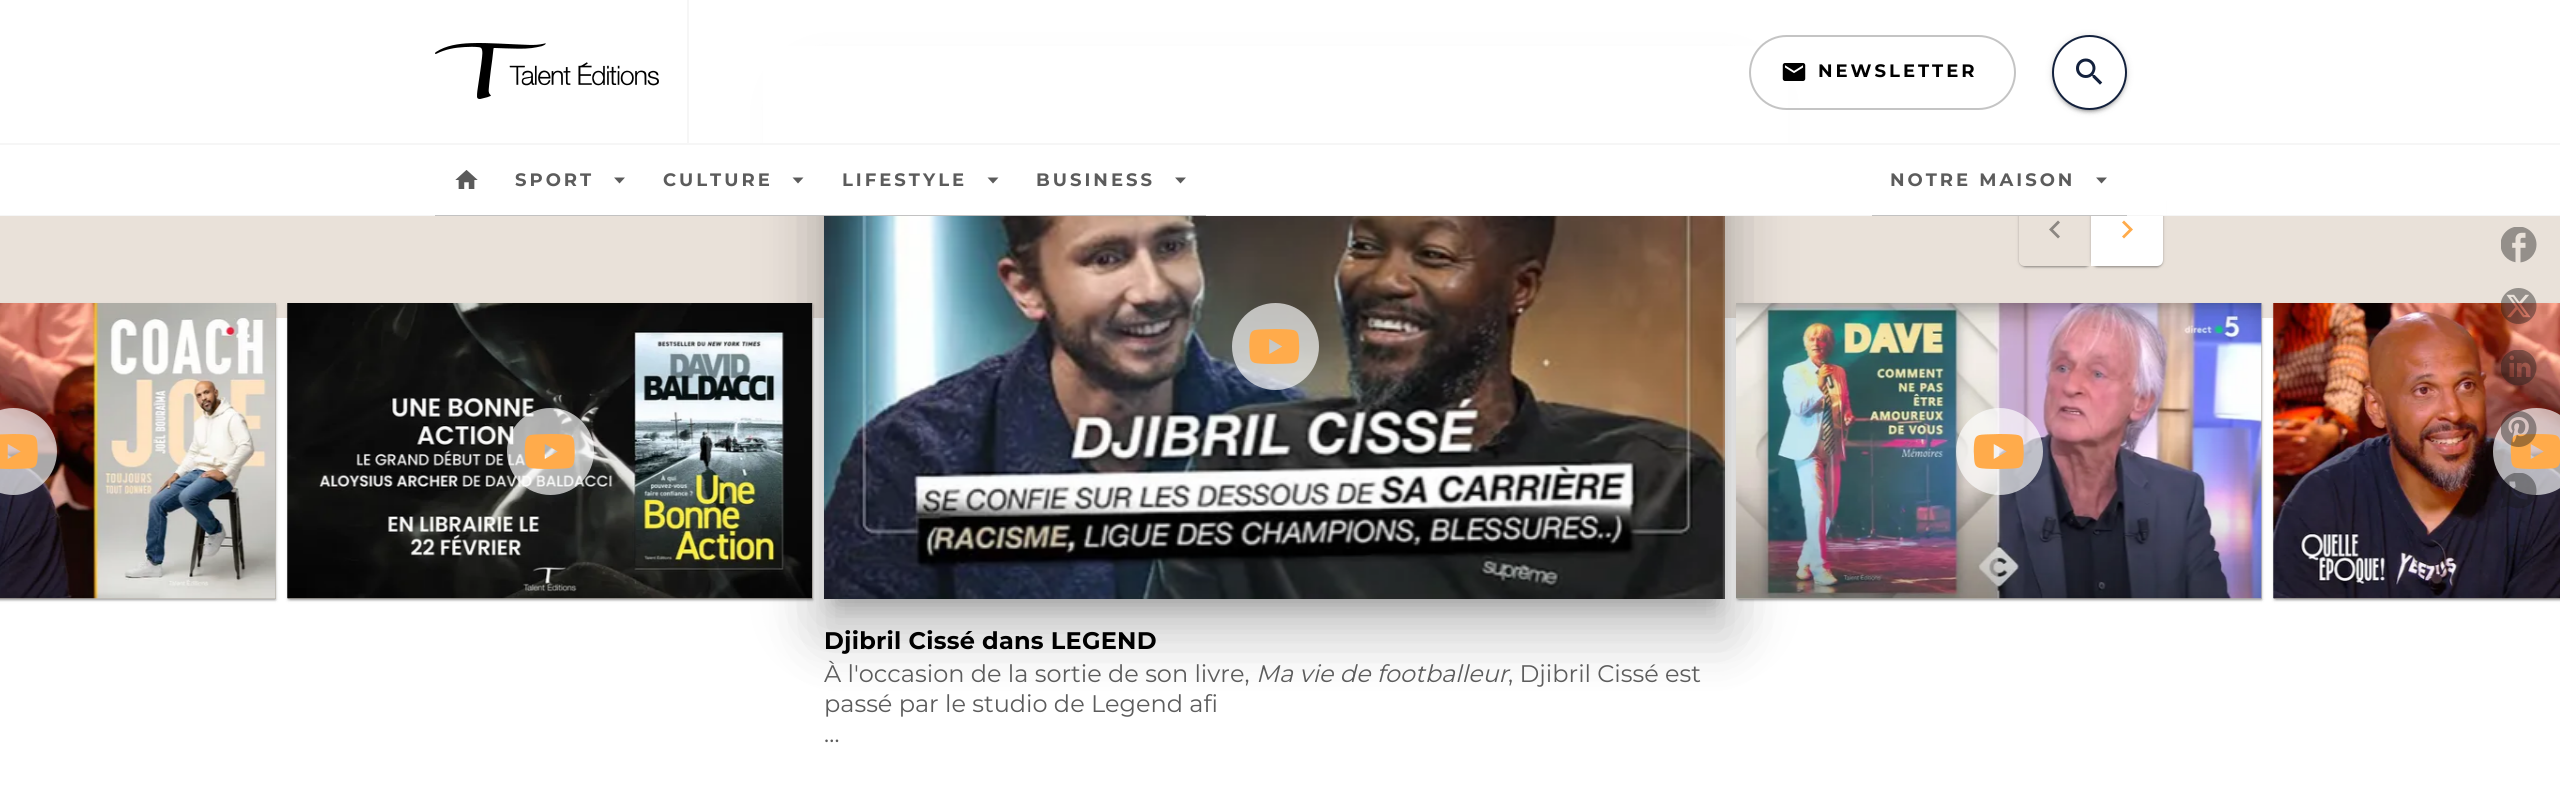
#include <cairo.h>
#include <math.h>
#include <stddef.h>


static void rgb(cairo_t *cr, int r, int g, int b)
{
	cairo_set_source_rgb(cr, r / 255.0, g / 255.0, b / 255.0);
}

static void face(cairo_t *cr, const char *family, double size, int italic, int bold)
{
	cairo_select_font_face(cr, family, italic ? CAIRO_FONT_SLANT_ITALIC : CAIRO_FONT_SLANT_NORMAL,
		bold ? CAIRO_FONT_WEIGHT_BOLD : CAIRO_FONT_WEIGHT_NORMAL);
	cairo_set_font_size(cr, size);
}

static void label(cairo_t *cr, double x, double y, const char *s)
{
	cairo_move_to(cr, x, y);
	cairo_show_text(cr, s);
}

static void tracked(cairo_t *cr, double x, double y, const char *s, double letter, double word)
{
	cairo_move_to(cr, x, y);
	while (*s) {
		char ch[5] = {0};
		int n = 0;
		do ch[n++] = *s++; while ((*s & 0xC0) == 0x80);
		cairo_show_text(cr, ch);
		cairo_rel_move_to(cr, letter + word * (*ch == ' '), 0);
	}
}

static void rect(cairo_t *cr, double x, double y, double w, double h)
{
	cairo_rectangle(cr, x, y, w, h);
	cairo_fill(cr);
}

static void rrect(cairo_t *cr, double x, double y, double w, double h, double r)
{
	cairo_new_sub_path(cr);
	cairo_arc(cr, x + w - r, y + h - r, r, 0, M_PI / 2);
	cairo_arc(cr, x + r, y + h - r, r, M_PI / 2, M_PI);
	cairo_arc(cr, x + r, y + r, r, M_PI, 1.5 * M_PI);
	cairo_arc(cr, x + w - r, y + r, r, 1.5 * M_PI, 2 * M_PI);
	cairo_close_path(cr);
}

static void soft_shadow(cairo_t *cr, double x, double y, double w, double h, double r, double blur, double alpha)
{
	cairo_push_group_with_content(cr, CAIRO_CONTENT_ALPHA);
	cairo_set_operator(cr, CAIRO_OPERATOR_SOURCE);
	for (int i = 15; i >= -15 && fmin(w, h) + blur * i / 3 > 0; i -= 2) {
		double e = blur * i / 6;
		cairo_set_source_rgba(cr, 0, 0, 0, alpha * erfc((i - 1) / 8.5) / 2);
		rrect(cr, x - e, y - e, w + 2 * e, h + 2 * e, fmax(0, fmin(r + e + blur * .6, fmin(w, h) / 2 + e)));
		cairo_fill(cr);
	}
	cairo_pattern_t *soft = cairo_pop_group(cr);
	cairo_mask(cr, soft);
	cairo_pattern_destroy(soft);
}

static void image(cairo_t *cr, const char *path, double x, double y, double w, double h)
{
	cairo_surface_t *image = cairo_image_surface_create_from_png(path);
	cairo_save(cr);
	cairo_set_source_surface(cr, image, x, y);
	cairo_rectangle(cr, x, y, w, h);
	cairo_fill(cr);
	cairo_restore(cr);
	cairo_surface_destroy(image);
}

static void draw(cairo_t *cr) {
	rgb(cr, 255, 255, 255);
	cairo_paint(cr);
	rgb(cr, 233, 225, 217);
	rect(cr, 0, 216, 2560, 102);
	rgb(cr, 0, 0, 0);
	soft_shadow(cr, 288, 305, 525, 295, 0, 2, 0.12);
	soft_shadow(cr, 288, 305, 525, 295, 0, 1, 0.14);
	soft_shadow(cr, 290, 308, 522, 292, 0, 1, 0.2);
	rgb(cr, 185, 180, 173);
	rect(cr, 288, 303, 525, 296);
	cairo_save(cr);
	cairo_set_fill_rule(cr, CAIRO_FILL_RULE_EVEN_ODD);
	cairo_new_path(cr);
	cairo_move_to(cr, 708, 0);
	cairo_line_to(cr, 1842, 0);
	cairo_line_to(cr, 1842, 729);
	cairo_line_to(cr, 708, 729);
	cairo_close_path(cr);
	cairo_move_to(cr, 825, 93);
	cairo_line_to(cr, 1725, 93);
	cairo_line_to(cr, 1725, 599);
	cairo_line_to(cr, 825, 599);
	cairo_close_path(cr);
	cairo_clip(cr);
	rgb(cr, 0, 0, 0);
	soft_shadow(cr, 813, 95, 924, 529, 0, 34.5, 0.12);
	cairo_restore(cr);
	cairo_save(cr);
	cairo_set_fill_rule(cr, CAIRO_FILL_RULE_EVEN_ODD);
	cairo_new_path(cr);
	cairo_move_to(cr, 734, 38);
	cairo_line_to(cr, 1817, 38);
	cairo_line_to(cr, 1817, 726);
	cairo_line_to(cr, 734, 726);
	cairo_close_path(cr);
	cairo_move_to(cr, 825, 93);
	cairo_line_to(cr, 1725, 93);
	cairo_line_to(cr, 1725, 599);
	cairo_line_to(cr, 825, 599);
	cairo_close_path(cr);
	cairo_clip(cr);
	rgb(cr, 0, 0, 0);
	soft_shadow(cr, 821, 125, 909, 514, 0, 28.5, 0.14);
	cairo_restore(cr);
	rgb(cr, 0, 0, 0);
	soft_shadow(cr, 836, 120, 879, 485, 0, 11, 0.2);
	rgb(cr, 255, 255, 255);
	rect(cr, 763, 46, 1025, 97);
	rgb(cr, 246, 246, 246);
	rect(cr, 0, 143, 2560, 2);
	rect(cr, 687, 0, 2, 143);
	image(cr, "image0.png", 435, 43, 224, 56);
	rrect(cr, 1750, 36, 265, 73, 36.5);
	rgb(cr, 196, 196, 196);
	cairo_stroke(cr);
	image(cr, "image1.png", 1782, 63, 24, 18);
	face(cr, "Montserrat", 18, 0, 1);
	rgb(cr, 0, 0, 0);
	tracked(cr, 1818, 77, "NEWSLETTER", 3, 0);
	rgb(cr, 0, 0, 0);
	soft_shadow(cr, 2052, 36, 75, 75, 37.5, 4, 0.12);
	soft_shadow(cr, 2052, 38, 75, 75, 37.5, 1.5, 0.14);
	soft_shadow(cr, 2055, 42, 69, 69, 34.5, 1, 0.2);
	rgb(cr, 255, 255, 255);
	cairo_arc(cr, 2089.5, 72.5, 36.5, 0, 2 * M_PI);
	cairo_fill_preserve(cr);
	rgb(cr, 19, 33, 61);
	cairo_stroke(cr);
	image(cr, "image2.png", 2076, 58, 27, 27);
	cairo_save(cr);
	cairo_set_fill_rule(cr, CAIRO_FILL_RULE_EVEN_ODD);
	cairo_new_path(cr);
	cairo_move_to(cr, 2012, 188);
	cairo_line_to(cr, 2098, 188);
	cairo_line_to(cr, 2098, 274);
	cairo_line_to(cr, 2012, 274);
	cairo_close_path(cr);
	cairo_move_to(cr, 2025, 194);
	cairo_line_to(cr, 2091, 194);
	cairo_line_to(cr, 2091, 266);
	cairo_line_to(cr, 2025, 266);
	cairo_curve_to(cr, 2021.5, 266, 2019, 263.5, 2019, 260);
	cairo_line_to(cr, 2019, 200);
	cairo_curve_to(cr, 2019, 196.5, 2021.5, 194, 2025, 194);
	cairo_close_path(cr);
	cairo_clip(cr);
	rgb(cr, 0, 0, 0);
	soft_shadow(cr, 2019, 195, 72, 72, 6, 2, 0.12);
	cairo_restore(cr);
	cairo_save(cr);
	cairo_set_fill_rule(cr, CAIRO_FILL_RULE_EVEN_ODD);
	cairo_new_path(cr);
	cairo_move_to(cr, 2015, 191);
	cairo_line_to(cr, 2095, 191);
	cairo_line_to(cr, 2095, 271);
	cairo_line_to(cr, 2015, 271);
	cairo_close_path(cr);
	cairo_move_to(cr, 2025, 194);
	cairo_line_to(cr, 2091, 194);
	cairo_line_to(cr, 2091, 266);
	cairo_line_to(cr, 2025, 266);
	cairo_curve_to(cr, 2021.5, 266, 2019, 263.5, 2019, 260);
	cairo_line_to(cr, 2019, 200);
	cairo_curve_to(cr, 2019, 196.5, 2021.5, 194, 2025, 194);
	cairo_close_path(cr);
	cairo_clip(cr);
	rgb(cr, 0, 0, 0);
	soft_shadow(cr, 2019, 195, 72, 72, 6, 1, 0.14);
	cairo_restore(cr);
	cairo_save(cr);
	cairo_set_fill_rule(cr, CAIRO_FILL_RULE_EVEN_ODD);
	cairo_new_path(cr);
	cairo_move_to(cr, 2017, 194);
	cairo_line_to(cr, 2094, 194);
	cairo_line_to(cr, 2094, 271);
	cairo_line_to(cr, 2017, 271);
	cairo_close_path(cr);
	cairo_move_to(cr, 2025, 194);
	cairo_line_to(cr, 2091, 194);
	cairo_line_to(cr, 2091, 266);
	cairo_line_to(cr, 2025, 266);
	cairo_curve_to(cr, 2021.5, 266, 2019, 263.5, 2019, 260);
	cairo_line_to(cr, 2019, 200);
	cairo_curve_to(cr, 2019, 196.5, 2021.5, 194, 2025, 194);
	cairo_close_path(cr);
	cairo_clip(cr);
	rgb(cr, 0, 0, 0);
	soft_shadow(cr, 2021, 198, 69, 69, 5, 1, 0.2);
	cairo_restore(cr);
	rgb(cr, 0, 0, 0);
	soft_shadow(cr, 2091, 195, 72, 72, 6, 2, 0.12);
	soft_shadow(cr, 2091, 195, 72, 72, 6, 1, 0.14);
	soft_shadow(cr, 2093, 198, 69, 69, 5, 1, 0.2);
	rgb(cr, 255, 255, 255);
	cairo_new_path(cr);
	cairo_move_to(cr, 2091, 194);
	cairo_line_to(cr, 2157, 194);
	cairo_curve_to(cr, 2160.5, 194, 2163, 196.5, 2163, 200);
	cairo_line_to(cr, 2163, 260);
	cairo_curve_to(cr, 2163, 263.5, 2160.5, 266, 2157, 266);
	cairo_line_to(cr, 2091, 266);
	cairo_close_path(cr);
	cairo_fill(cr);
	rect(cr, 760, 145, 1406, 70);
	image(cr, "image3.png", 455, 170, 23, 19);
	rgb(cr, 246, 246, 246);
	rect(cr, 0, 215, 2560, 1);
	rgb(cr, 194, 194, 194);
	rect(cr, 435, 215, 771, 1);
	rgb(cr, 92, 92, 92);
	tracked(cr, 515, 186, "SPORT", 3, 0);
	rgb(cr, 91, 91, 91);
	cairo_new_path(cr);
	cairo_move_to(cr, 614, 177.5);
	cairo_line_to(cr, 625, 177.5);
	cairo_line_to(cr, 619.5, 183.5);
	cairo_close_path(cr);
	cairo_fill(cr);
	rgb(cr, 92, 92, 92);
	tracked(cr, 663, 186, "CULTURE", 3, 0);
	rgb(cr, 91, 91, 91);
	cairo_new_path(cr);
	cairo_move_to(cr, 792.5, 177.5);
	cairo_line_to(cr, 803.5, 177.5);
	cairo_line_to(cr, 798, 183.5);
	cairo_close_path(cr);
	cairo_fill(cr);
	rgb(cr, 92, 92, 92);
	tracked(cr, 842, 186, "LIFESTYLE", 3, 0);
	rgb(cr, 91, 91, 91);
	cairo_new_path(cr);
	cairo_move_to(cr, 987.5, 177.5);
	cairo_line_to(cr, 998.5, 177.5);
	cairo_line_to(cr, 993, 183.5);
	cairo_close_path(cr);
	cairo_fill(cr);
	rgb(cr, 92, 92, 92);
	tracked(cr, 1036, 186, "BUSINESS", 3, 0);
	rgb(cr, 91, 91, 91);
	cairo_new_path(cr);
	cairo_move_to(cr, 1175, 177.5);
	cairo_line_to(cr, 1186, 177.5);
	cairo_line_to(cr, 1180.5, 183.5);
	cairo_close_path(cr);
	cairo_fill(cr);
	rgb(cr, 92, 92, 92);
	tracked(cr, 1890, 186, "NOTRE MAISON", 3, 0);
	rgb(cr, 91, 91, 91);
	cairo_new_path(cr);
	cairo_move_to(cr, 2096, 177.5);
	cairo_line_to(cr, 2107, 177.5);
	cairo_line_to(cr, 2101.5, 183.5);
	cairo_close_path(cr);
	cairo_fill(cr);
	rgb(cr, 194, 194, 194);
	rect(cr, 1872, 215, 255, 1);
	image(cr, "image4.png", 2501, 227, 36, 36);
	rgb(cr, 0, 0, 0);
	soft_shadow(cr, 2274, 305, 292, 295, 0, 2, 0.12);
	soft_shadow(cr, 2274, 305, 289, 295, 0, 1, 0.14);
	soft_shadow(cr, 2276, 308, 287, 292, 0, 1, 0.2);
	rgb(cr, 185, 180, 173);
	rect(cr, 2274, 598, 286, 1);
	image(cr, "image16.png", 2273, 303, 287, 296);
	image(cr, "image5.png", 2501, 288, 36, 36);
	image(cr, "image6.png", 2501, 350, 36, 36);
	cairo_set_source_rgba(cr, 1, 1, 1, 0.66);
	cairo_arc(cr, 2536.5, 451.5, 43.5, 0, 2 * M_PI);
	cairo_fill(cr);
	image(cr, "image17.png", 2510, 434, 50, 35);
	image(cr, "image7.png", 2501, 411, 36, 36);
	image(cr, "image8.png", 2501, 473, 36, 36);
	image(cr, "image9.png", 2503, 544, 31, 16);
	rgb(cr, 140, 135, 130);
	cairo_new_path(cr);
	cairo_move_to(cr, 2060, 222.5);
	cairo_line_to(cr, 2053, 229.5);
	cairo_line_to(cr, 2060, 236.5);
	cairo_line_to(cr, 2058, 238.5);
	cairo_line_to(cr, 2049, 229.5);
	cairo_line_to(cr, 2058, 220.5);
	cairo_close_path(cr);
	cairo_fill(cr);
	rgb(cr, 255, 171, 75);
	cairo_new_path(cr);
	cairo_move_to(cr, 2124, 220.5);
	cairo_line_to(cr, 2133, 229.5);
	cairo_line_to(cr, 2124, 238.5);
	cairo_line_to(cr, 2122, 236.5);
	cairo_line_to(cr, 2129, 229.5);
	cairo_line_to(cr, 2122, 222.5);
	cairo_close_path(cr);
	cairo_fill(cr);
	rgb(cr, 0, 0, 0);
	soft_shadow(cr, -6, 305, 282, 295, 0, 2, 0.12);
	soft_shadow(cr, -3, 305, 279, 295, 0, 1, 0.14);
	soft_shadow(cr, -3, 308, 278, 292, 0, 1, 0.2);
	rgb(cr, 185, 180, 173);
	rect(cr, 0, 303, 276, 296);
	image(cr, "image10.png", 0, 303, 276, 296);
	cairo_set_source_rgba(cr, 1, 1, 1, 0.66);
	cairo_arc(cr, 13.5, 451.5, 43.5, 0, 2 * M_PI);
	cairo_fill(cr);
	image(cr, "image11.png", 0, 434, 38, 35);
	image(cr, "image12.png", 287, 303, 525, 296);
	cairo_arc(cr, 550.5, 451.5, 43.5, 0, 2 * M_PI);
	cairo_fill(cr);
	image(cr, "image13.png", 524, 434, 51, 35);
	rgb(cr, 0, 0, 0);
	soft_shadow(cr, 1737, 305, 525, 295, 0, 2, 0.12);
	soft_shadow(cr, 1737, 305, 525, 295, 0, 1, 0.14);
	soft_shadow(cr, 1739, 308, 522, 292, 0, 1, 0.2);
	rgb(cr, 185, 180, 173);
	rect(cr, 1737, 303, 525, 296);
	image(cr, "image14.png", 1736, 303, 526, 296);
	cairo_set_source_rgba(cr, 1, 1, 1, 0.66);
	cairo_arc(cr, 1999.5, 451.5, 43.5, 0, 2 * M_PI);
	cairo_fill(cr);
	image(cr, "image15.png", 1973, 434, 51, 35);
	image(cr, "image18.png", 824, 216, 901, 383);
	cairo_arc(cr, 1275.5, 346.5, 43.5, 0, 2 * M_PI);
	cairo_fill(cr);
	image(cr, "image19.png", 1249, 329, 51, 35);
	face(cr, "Montserrat", 24, 0, 1);
	rgb(cr, 0, 0, 0);
	tracked(cr, 824, 649, "Djibril Cissé dans LEGEND", 0.25, 0);
	face(cr, "Montserrat", 24, 0, 0);
	rgb(cr, 92, 92, 92);
	label(cr, 824, 682, "À l'occasion de la sortie de son livre,");
	face(cr, "Montserrat", 24, 1, 0);
	label(cr, 1256, 682, "Ma vie de footballeur");
	face(cr, "Montserrat", 24, 0, 0);
	label(cr, 1508, 682, ", Djibril Cissé est");
	label(cr, 824, 712, "passé par le studio de Legend afi");
	label(cr, 824, 742, "…");
}

int main(void) {
	cairo_surface_t *surface = cairo_image_surface_create(CAIRO_FORMAT_RGB24, 2560, 798);
	cairo_t *cr = cairo_create(surface);
	cairo_font_options_t *options = cairo_font_options_create();
	cairo_font_options_set_hint_metrics(options, CAIRO_HINT_METRICS_OFF);
	cairo_font_options_set_hint_style(options, CAIRO_HINT_STYLE_NONE);
	cairo_set_font_options(cr, options);
	cairo_set_miter_limit(cr, 4);
	draw(cr);
	cairo_surface_write_to_png(surface, "render.png");
	cairo_font_options_destroy(options);
	cairo_destroy(cr);
	cairo_surface_destroy(surface);
	return 0;
}
